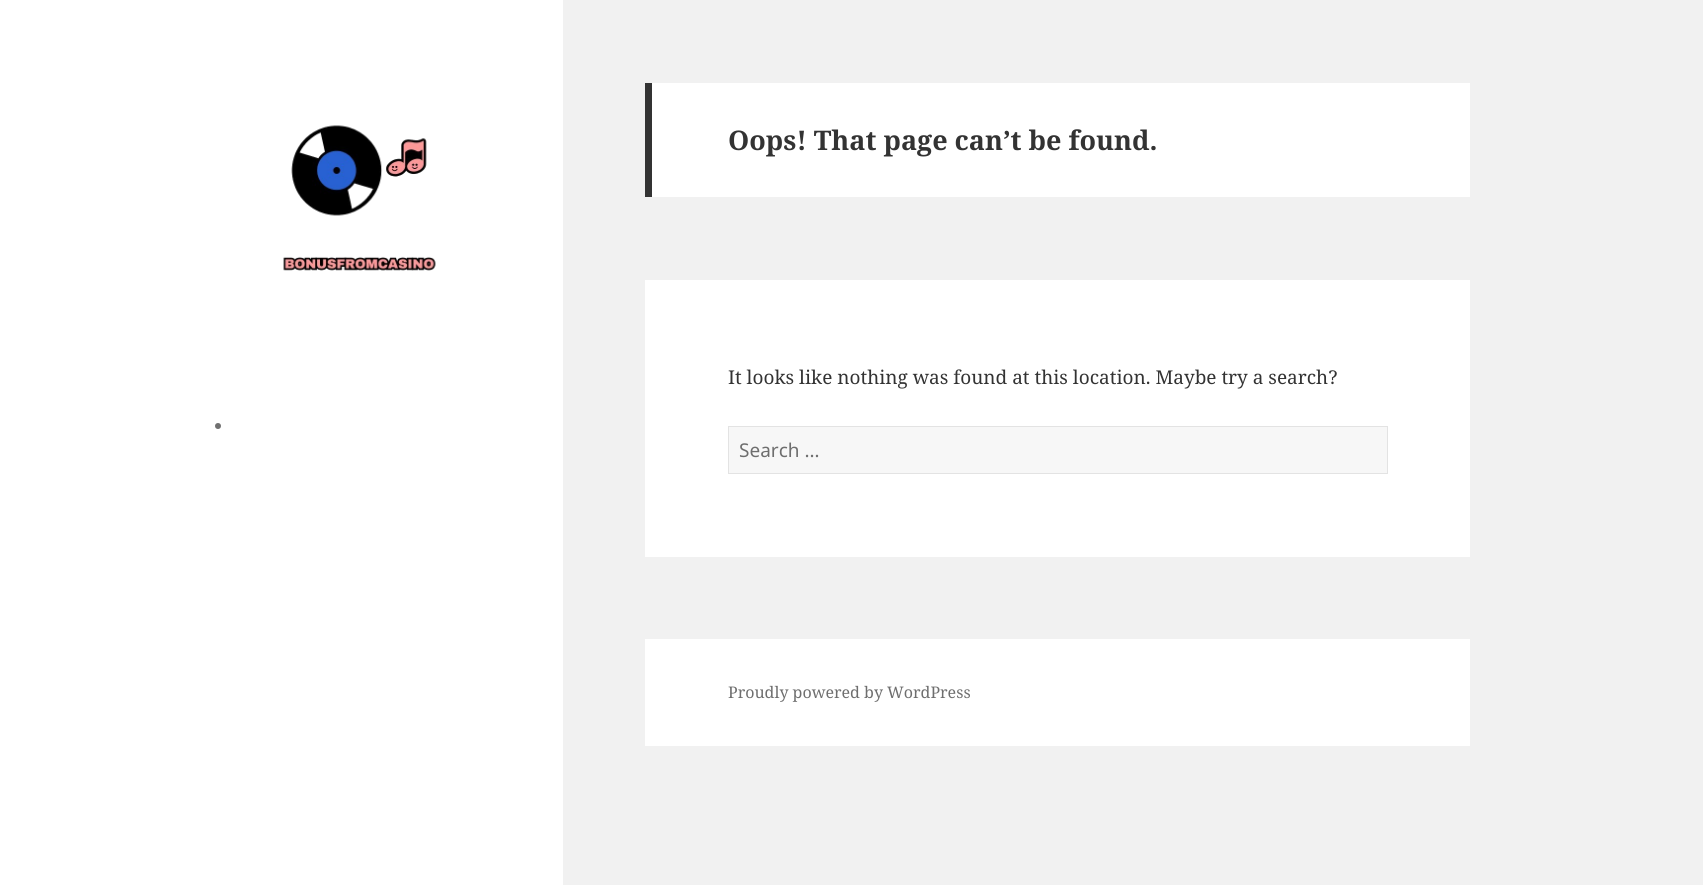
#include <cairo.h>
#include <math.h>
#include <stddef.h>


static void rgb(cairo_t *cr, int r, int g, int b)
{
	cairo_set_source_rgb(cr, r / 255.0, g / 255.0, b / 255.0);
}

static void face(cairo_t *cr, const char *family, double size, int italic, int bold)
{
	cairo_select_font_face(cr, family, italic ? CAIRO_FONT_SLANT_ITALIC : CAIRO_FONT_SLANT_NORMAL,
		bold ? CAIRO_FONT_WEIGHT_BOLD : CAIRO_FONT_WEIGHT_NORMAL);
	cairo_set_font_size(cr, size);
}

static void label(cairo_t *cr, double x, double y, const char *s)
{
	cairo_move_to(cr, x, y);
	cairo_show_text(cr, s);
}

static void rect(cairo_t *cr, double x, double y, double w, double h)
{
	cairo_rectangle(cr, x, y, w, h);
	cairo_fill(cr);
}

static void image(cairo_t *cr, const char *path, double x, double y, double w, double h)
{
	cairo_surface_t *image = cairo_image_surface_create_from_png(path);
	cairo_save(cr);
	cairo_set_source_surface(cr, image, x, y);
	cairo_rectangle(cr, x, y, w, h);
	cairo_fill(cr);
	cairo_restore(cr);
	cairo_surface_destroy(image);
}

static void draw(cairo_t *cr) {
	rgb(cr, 241, 241, 241);
	cairo_paint(cr);
	rgb(cr, 255, 255, 255);
	rect(cr, 0, 0, 563, 885);
	image(cr, "image0.png", 283, 125, 153, 146);
	rgb(cr, 112, 112, 112);
	cairo_arc(cr, 218, 426, 3, 0, 2 * M_PI);
	cairo_fill(cr);
	rgb(cr, 255, 255, 255);
	rect(cr, 652, 83, 818, 114);
	rgb(cr, 51, 51, 51);
	rect(cr, 645, 83, 7, 114);
	face(cr, "Noto Serif", 27, 0, 1);
	label(cr, 728, 150, "Oops! That page can’t be found.");
	rgb(cr, 255, 255, 255);
	rect(cr, 645, 280, 825, 277);
	face(cr, "Noto Serif", 19, 0, 0);
	rgb(cr, 51, 51, 51);
	label(cr, 728, 384, "It looks like nothing was found at this location. Maybe try a search?");
	rgb(cr, 247, 247, 247);
	cairo_rectangle(cr, 728.5, 426.5, 659, 47);
	cairo_fill_preserve(cr);
	rgb(cr, 227, 227, 227);
	cairo_set_line_width(cr, 1);
	cairo_stroke(cr);
	face(cr, "Noto Sans", 19, 0, 0);
	rgb(cr, 110, 110, 110);
	label(cr, 739, 457, "Search …");
	rgb(cr, 255, 255, 255);
	rect(cr, 645, 639, 825, 107);
	face(cr, "Noto Serif", 16, 0, 0);
	rgb(cr, 110, 110, 110);
	label(cr, 728, 698, "Proudly powered by WordPress");
}

int main(void) {
	cairo_surface_t *surface = cairo_image_surface_create(CAIRO_FORMAT_RGB24, 1703, 885);
	cairo_t *cr = cairo_create(surface);
	cairo_font_options_t *options = cairo_font_options_create();
	cairo_font_options_set_hint_metrics(options, CAIRO_HINT_METRICS_OFF);
	cairo_font_options_set_hint_style(options, CAIRO_HINT_STYLE_NONE);
	cairo_set_font_options(cr, options);
	cairo_set_miter_limit(cr, 4);
	draw(cr);
	cairo_surface_write_to_png(surface, "render.png");
	cairo_font_options_destroy(options);
	cairo_destroy(cr);
	cairo_surface_destroy(surface);
	return 0;
}
